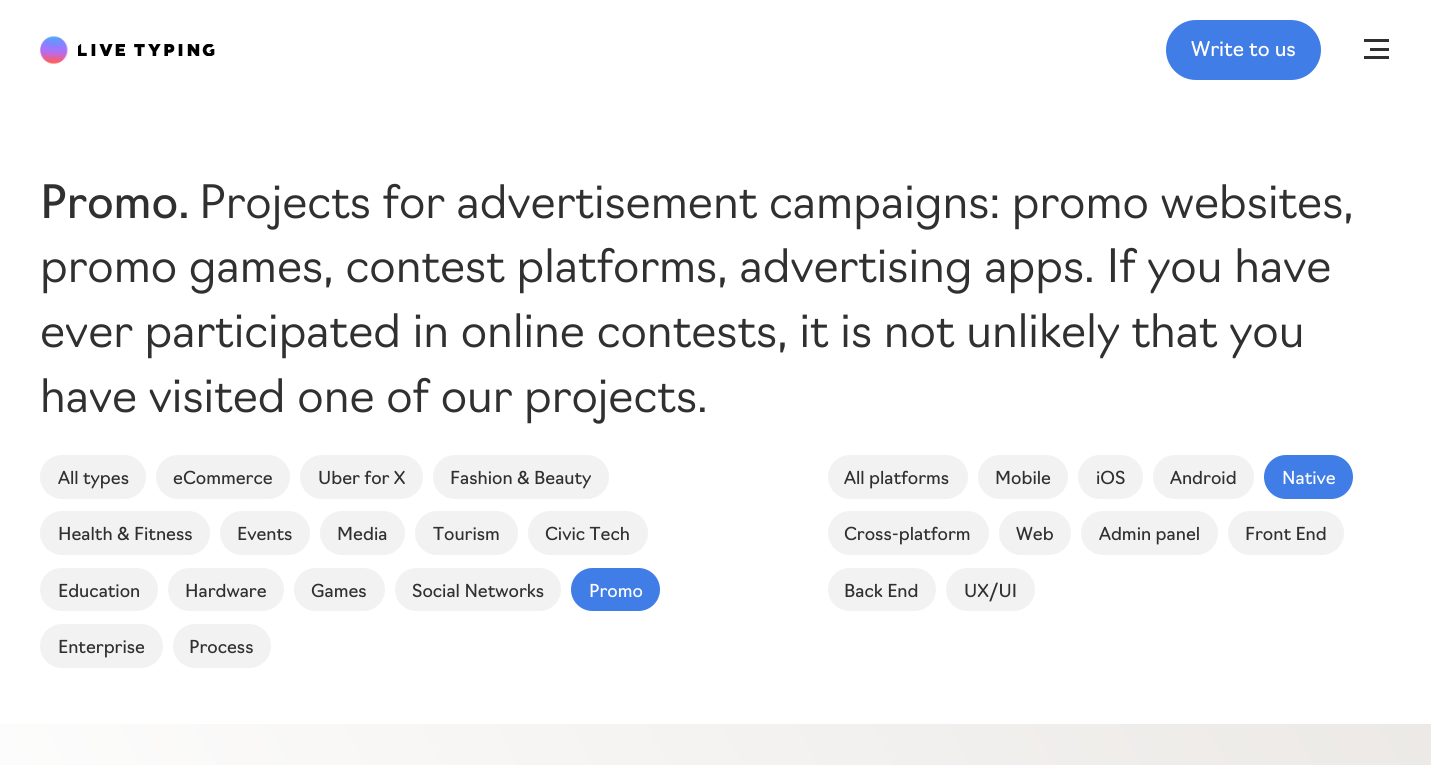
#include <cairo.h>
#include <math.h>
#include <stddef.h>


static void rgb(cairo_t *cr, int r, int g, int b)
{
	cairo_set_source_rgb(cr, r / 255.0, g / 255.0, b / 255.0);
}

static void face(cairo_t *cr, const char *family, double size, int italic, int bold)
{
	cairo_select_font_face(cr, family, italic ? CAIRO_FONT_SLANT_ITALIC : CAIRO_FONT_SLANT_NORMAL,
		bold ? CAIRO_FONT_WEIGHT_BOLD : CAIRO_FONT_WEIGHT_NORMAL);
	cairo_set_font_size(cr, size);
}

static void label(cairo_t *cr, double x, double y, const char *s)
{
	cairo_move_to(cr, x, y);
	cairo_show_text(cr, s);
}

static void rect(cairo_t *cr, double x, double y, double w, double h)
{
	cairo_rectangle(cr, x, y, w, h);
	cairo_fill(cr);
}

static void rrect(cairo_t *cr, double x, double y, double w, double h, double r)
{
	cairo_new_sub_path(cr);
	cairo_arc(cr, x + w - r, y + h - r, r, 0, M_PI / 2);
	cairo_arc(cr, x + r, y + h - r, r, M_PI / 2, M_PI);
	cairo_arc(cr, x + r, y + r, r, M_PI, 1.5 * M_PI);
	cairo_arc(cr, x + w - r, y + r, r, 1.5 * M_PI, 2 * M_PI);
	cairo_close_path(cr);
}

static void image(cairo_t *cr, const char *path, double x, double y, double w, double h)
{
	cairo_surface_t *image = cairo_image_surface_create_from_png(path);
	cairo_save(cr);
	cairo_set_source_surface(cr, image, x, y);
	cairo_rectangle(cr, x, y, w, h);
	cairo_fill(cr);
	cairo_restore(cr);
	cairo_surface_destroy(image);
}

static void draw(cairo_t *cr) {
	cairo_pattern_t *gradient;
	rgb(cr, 255, 255, 255);
	cairo_paint(cr);
	image(cr, "image0.png", 40, 36, 28, 28);
	image(cr, "image1.png", 78, 44, 137, 12);
	rgb(cr, 64, 125, 230);
	rrect(cr, 1166, 20, 155, 60, 30);
	cairo_fill(cr);
	face(cr, "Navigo", 20, 0, 0);
	rgb(cr, 255, 255, 255);
	label(cr, 1191, 56, "Write to us");
	rgb(cr, 48, 48, 48);
	rect(cr, 1370, 48, 19, 3);
	rect(cr, 1364, 39, 25, 3);
	rect(cr, 1364, 56, 25, 3);
	face(cr, "Navigo", 45, 0, 0);
	label(cr, 40, 218, "Promo.");
	face(cr, "Navigo Light", 45, 0, 0);
	label(cr, 199, 218, "Projects for advertisement campaigns: promo websites,");
	label(cr, 40, 282, "promo games, contest platforms, advertising apps. If you have");
	label(cr, 40, 347, "ever participated in online contests, it is not unlikely that you");
	label(cr, 40, 412, "have visited one of our projects.");
	rgb(cr, 242, 242, 242);
	rrect(cr, 40, 455, 106, 44, 22);
	cairo_fill(cr);
	face(cr, "Navigo", 17.5, 0, 0);
	rgb(cr, 48, 48, 48);
	label(cr, 58, 484, "All types");
	rgb(cr, 242, 242, 242);
	rrect(cr, 156, 455, 134, 44, 22);
	cairo_fill(cr);
	rgb(cr, 48, 48, 48);
	label(cr, 173, 484, "eCommerce");
	rgb(cr, 242, 242, 242);
	rrect(cr, 300, 455, 123, 44, 22);
	cairo_fill(cr);
	rgb(cr, 48, 48, 48);
	label(cr, 318, 484, "Uber for X");
	rgb(cr, 242, 242, 242);
	rrect(cr, 433, 455, 176, 44, 22);
	cairo_fill(cr);
	rgb(cr, 48, 48, 48);
	label(cr, 450, 484, "Fashion & Beauty");
	rgb(cr, 242, 242, 242);
	rrect(cr, 40, 511, 170, 44, 22);
	cairo_fill(cr);
	rgb(cr, 48, 48, 48);
	label(cr, 58, 540, "Health & Fitness");
	rgb(cr, 242, 242, 242);
	rrect(cr, 220, 511, 90, 44, 22);
	cairo_fill(cr);
	rgb(cr, 48, 48, 48);
	label(cr, 237, 540, "Events");
	rgb(cr, 242, 242, 242);
	rrect(cr, 320, 511, 85, 44, 22);
	cairo_fill(cr);
	rgb(cr, 48, 48, 48);
	label(cr, 337, 540, "Media");
	rgb(cr, 242, 242, 242);
	rrect(cr, 415, 511, 103, 44, 22);
	cairo_fill(cr);
	rgb(cr, 48, 48, 48);
	label(cr, 433, 540, "Tourism");
	rgb(cr, 242, 242, 242);
	rrect(cr, 528, 511, 120, 44, 22);
	cairo_fill(cr);
	rgb(cr, 48, 48, 48);
	label(cr, 545, 540, "Civic Tech");
	rgb(cr, 242, 242, 242);
	rrect(cr, 40, 568, 118, 43, 21.5);
	cairo_fill(cr);
	rgb(cr, 48, 48, 48);
	label(cr, 58, 597, "Education");
	rgb(cr, 242, 242, 242);
	rrect(cr, 168, 568, 116, 43, 21.5);
	cairo_fill(cr);
	rgb(cr, 48, 48, 48);
	label(cr, 185, 597, "Hardware");
	rgb(cr, 242, 242, 242);
	rrect(cr, 294, 568, 91, 43, 21.5);
	cairo_fill(cr);
	rgb(cr, 48, 48, 48);
	label(cr, 311, 597, "Games");
	rgb(cr, 242, 242, 242);
	rrect(cr, 395, 568, 166, 43, 21.5);
	cairo_fill(cr);
	rgb(cr, 48, 48, 48);
	label(cr, 412, 597, "Social Networks");
	rgb(cr, 64, 125, 230);
	rrect(cr, 571, 568, 89, 43, 21.5);
	cairo_fill(cr);
	rgb(cr, 255, 255, 255);
	label(cr, 589, 597, "Promo");
	rgb(cr, 242, 242, 242);
	rrect(cr, 40, 624, 123, 44, 22);
	cairo_fill(cr);
	rgb(cr, 48, 48, 48);
	label(cr, 58, 653, "Enterprise");
	rgb(cr, 242, 242, 242);
	rrect(cr, 173, 624, 98, 44, 22);
	cairo_fill(cr);
	rgb(cr, 48, 48, 48);
	label(cr, 189, 653, "Process");
	rgb(cr, 242, 242, 242);
	rrect(cr, 828, 455, 140, 44, 22);
	cairo_fill(cr);
	rgb(cr, 48, 48, 48);
	label(cr, 844, 484, "All platforms");
	rgb(cr, 242, 242, 242);
	rrect(cr, 978, 455, 90, 44, 22);
	cairo_fill(cr);
	rgb(cr, 48, 48, 48);
	label(cr, 995, 484, "Mobile");
	rgb(cr, 242, 242, 242);
	rrect(cr, 1078, 455, 65, 44, 22);
	cairo_fill(cr);
	rgb(cr, 48, 48, 48);
	label(cr, 1096, 484, "iOS");
	rgb(cr, 242, 242, 242);
	rrect(cr, 1153, 455, 101, 44, 22);
	cairo_fill(cr);
	rgb(cr, 48, 48, 48);
	label(cr, 1170, 484, "Android");
	rgb(cr, 64, 125, 230);
	rrect(cr, 1264, 455, 89, 44, 22);
	cairo_fill(cr);
	rgb(cr, 255, 255, 255);
	label(cr, 1282, 484, "Native");
	rgb(cr, 242, 242, 242);
	rrect(cr, 828, 511, 161, 44, 22);
	cairo_fill(cr);
	rgb(cr, 48, 48, 48);
	label(cr, 844, 540, "Cross-platform");
	rgb(cr, 242, 242, 242);
	rrect(cr, 999, 511, 72, 44, 22);
	cairo_fill(cr);
	rgb(cr, 48, 48, 48);
	label(cr, 1016, 540, "Web");
	rgb(cr, 242, 242, 242);
	rrect(cr, 1081, 511, 137, 44, 22);
	cairo_fill(cr);
	rgb(cr, 48, 48, 48);
	label(cr, 1099, 540, "Admin panel");
	rgb(cr, 242, 242, 242);
	rrect(cr, 1228, 511, 116, 44, 22);
	cairo_fill(cr);
	rgb(cr, 48, 48, 48);
	label(cr, 1245, 540, "Front End");
	rgb(cr, 242, 242, 242);
	rrect(cr, 828, 568, 108, 43, 21.5);
	cairo_fill(cr);
	rgb(cr, 48, 48, 48);
	label(cr, 844, 597, "Back End");
	rgb(cr, 242, 242, 242);
	rrect(cr, 946, 568, 89, 43, 21.5);
	cairo_fill(cr);
	rgb(cr, 48, 48, 48);
	label(cr, 964, 597, "UX/UI");
	gradient = cairo_pattern_create_linear(83, 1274, 1348, 573);
	cairo_pattern_add_color_stop_rgba(gradient, 0, 1, 1, 1, 1);
	cairo_pattern_add_color_stop_rgba(gradient, 1, 0.925, 0.914, 0.902, 1);
	cairo_set_source(cr, gradient);
	cairo_pattern_destroy(gradient);
	rect(cr, 0, 724, 1431, 41);
}

int main(void) {
	cairo_surface_t *surface = cairo_image_surface_create(CAIRO_FORMAT_RGB24, 1450, 765);
	cairo_t *cr = cairo_create(surface);
	cairo_font_options_t *options = cairo_font_options_create();
	cairo_font_options_set_hint_metrics(options, CAIRO_HINT_METRICS_OFF);
	cairo_font_options_set_hint_style(options, CAIRO_HINT_STYLE_NONE);
	cairo_set_font_options(cr, options);
	cairo_set_miter_limit(cr, 4);
	draw(cr);
	cairo_surface_write_to_png(surface, "render.png");
	cairo_font_options_destroy(options);
	cairo_destroy(cr);
	cairo_surface_destroy(surface);
	return 0;
}
